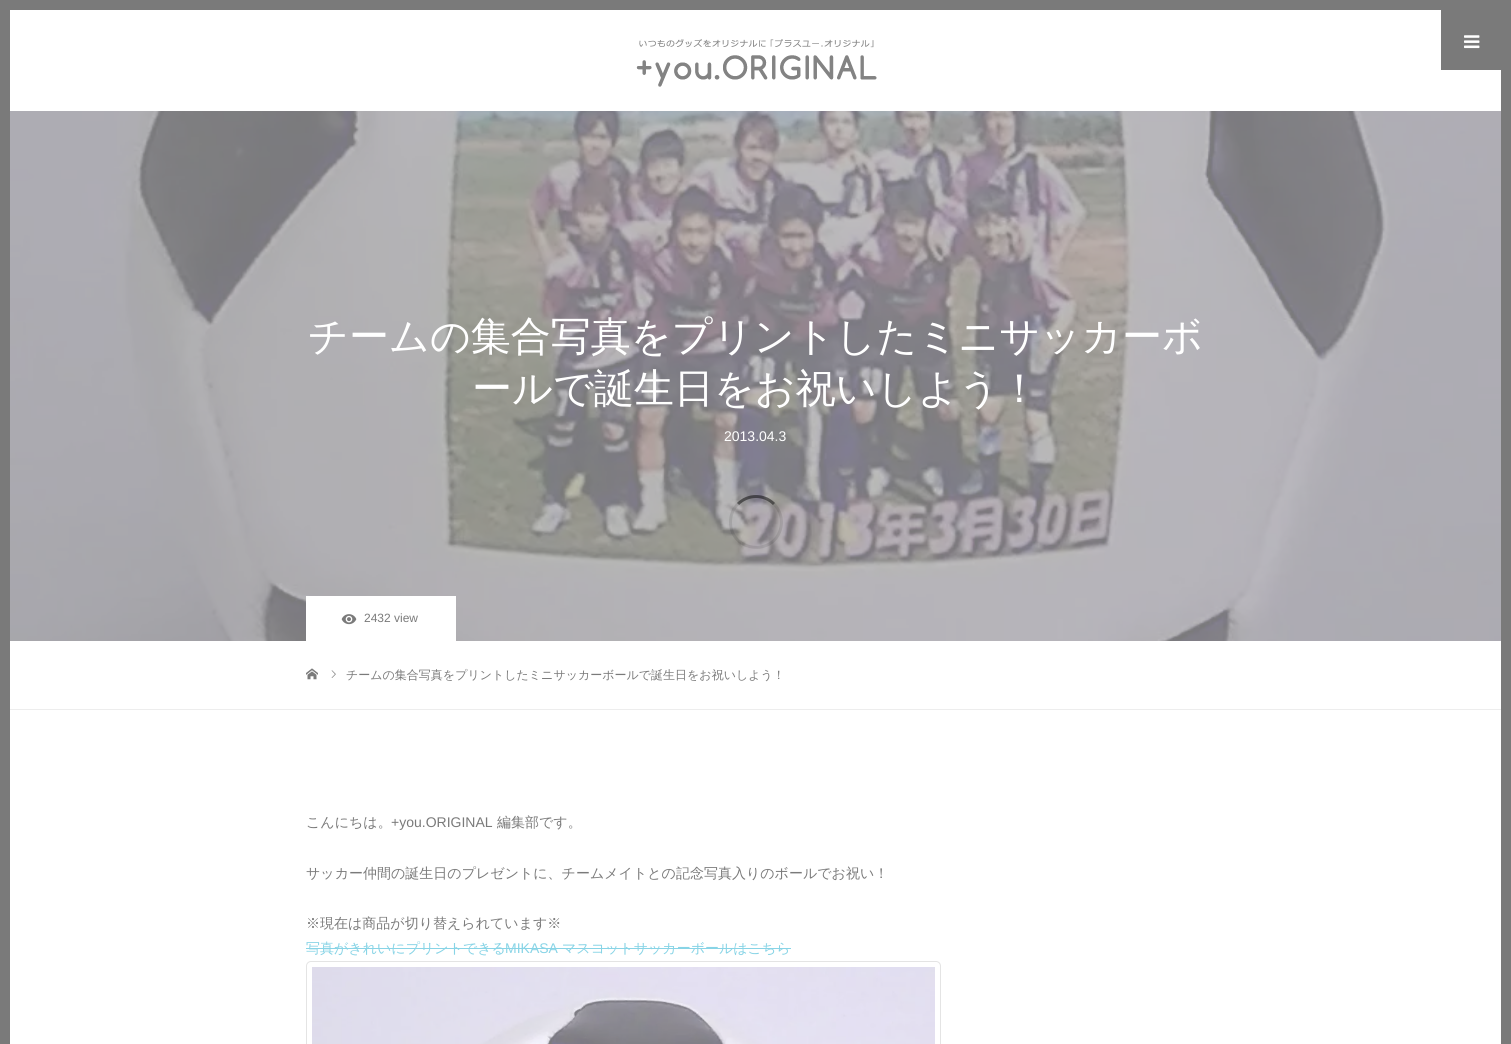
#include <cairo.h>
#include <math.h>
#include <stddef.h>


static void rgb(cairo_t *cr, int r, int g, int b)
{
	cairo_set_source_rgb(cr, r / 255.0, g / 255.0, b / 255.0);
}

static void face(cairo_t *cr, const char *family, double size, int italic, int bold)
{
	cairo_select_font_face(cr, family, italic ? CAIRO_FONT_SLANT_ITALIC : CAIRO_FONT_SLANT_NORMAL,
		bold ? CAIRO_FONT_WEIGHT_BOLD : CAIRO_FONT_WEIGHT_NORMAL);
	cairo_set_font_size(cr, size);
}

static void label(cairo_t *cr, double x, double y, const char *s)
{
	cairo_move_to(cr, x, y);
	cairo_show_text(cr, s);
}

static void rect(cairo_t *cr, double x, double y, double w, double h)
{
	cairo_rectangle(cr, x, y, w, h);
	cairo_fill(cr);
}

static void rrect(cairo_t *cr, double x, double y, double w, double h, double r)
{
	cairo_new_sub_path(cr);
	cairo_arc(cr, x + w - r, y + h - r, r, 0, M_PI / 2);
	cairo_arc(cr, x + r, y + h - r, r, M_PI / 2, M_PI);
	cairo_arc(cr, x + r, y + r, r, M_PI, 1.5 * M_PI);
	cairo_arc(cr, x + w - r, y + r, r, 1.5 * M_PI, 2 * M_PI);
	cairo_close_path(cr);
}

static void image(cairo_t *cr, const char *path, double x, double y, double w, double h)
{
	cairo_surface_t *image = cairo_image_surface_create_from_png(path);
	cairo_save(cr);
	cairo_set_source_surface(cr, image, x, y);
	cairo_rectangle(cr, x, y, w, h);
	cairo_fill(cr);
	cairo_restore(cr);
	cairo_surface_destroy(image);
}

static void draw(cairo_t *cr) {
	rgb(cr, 255, 255, 255);
	cairo_paint(cr);
	cairo_rectangle(cr, 5, 5, 1501, 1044);
	rgb(cr, 122, 122, 122);
	cairo_set_line_width(cr, 10);
	cairo_stroke(cr);
	image(cr, "image0.png", 636, 39, 241, 48);
	rect(cr, 1441, 10, 60, 60);
	image(cr, "image1.png", 1464, 35, 16, 14);
	image(cr, "image2.png", 10, 111, 1491, 530);
	face(cr, "WenQuanYi Zen Hei Medium", 40, 0, 0);
	rgb(cr, 255, 255, 255);
	label(cr, 308, 350, "チームの集合写真をプリントしたミニサッカーボ");
	label(cr, 472, 402, "ールで誕生日をお祝いしよう！");
	face(cr, "Liberation Sans", 14, 0, 0);
	label(cr, 724, 441, "2013.04.3");
	rect(cr, 306, 596, 150, 45);
	image(cr, "image3.png", 341, 614, 16, 11);
	face(cr, "Liberation Sans", 12, 0, 0);
	rgb(cr, 122, 122, 122);
	label(cr, 364, 622, "2432 view");
	rgb(cr, 237, 237, 237);
	rect(cr, 10, 709, 1491, 1);
	image(cr, "image4.png", 306, 668, 12, 12);
	image(cr, "image5.png", 331, 670, 5, 8);
	face(cr, "WenQuanYi Zen Hei Medium", 12, 0, 0);
	rgb(cr, 122, 122, 122);
	label(cr, 346, 679, "チームの集合写真をプリントしたミニサッカーボールで誕生日をお祝いしよう！");
	face(cr, "WenQuanYi Zen Hei Medium", 14, 0, 0);
	label(cr, 306, 827, "こんにちは。");
	face(cr, "Liberation Sans", 14, 0, 0);
	label(cr, 391, 827, "+you.ORIGINAL");
	face(cr, "WenQuanYi Zen Hei Medium", 14, 0, 0);
	label(cr, 497, 827, "編集部です。");
	label(cr, 306, 878, "サッカー仲間の誕生日のプレゼントに、チームメイトとの記念写真入りのボールでお祝い！");
	label(cr, 306, 928, "※現在は商品が切り替えられています※");
	rgb(cr, 136, 212, 230);
	label(cr, 306, 953, "写真がきれいにプリントできる");
	rect(cr, 306, 948, 485, 1);
	face(cr, "Liberation Sans", 14, 0, 0);
	label(cr, 505, 953, "MIKASA");
	face(cr, "WenQuanYi Zen Hei Medium", 14, 0, 0);
	label(cr, 562, 953, "マスコットサッカーボールはこちら");
	rrect(cr, 306.5, 961.5, 634, 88, 4.5);
	rgb(cr, 228, 228, 228);
	cairo_set_line_width(cr, 1);
	cairo_stroke(cr);
	image(cr, "image6.png", 312, 967, 623, 77);
	cairo_new_path(cr);
	cairo_move_to(cr, 738, 504);
	cairo_curve_to(cr, 748, 494, 764, 494, 774, 504);
	cairo_set_source_rgba(cr, 0, 0, 0, 0.48);
	cairo_set_line_width(cr, 3);
	cairo_stroke(cr);
	cairo_new_path(cr);
	cairo_move_to(cr, 774, 504);
	cairo_curve_to(cr, 780, 510, 782.5, 518.5, 781, 527);
	cairo_curve_to(cr, 775, 557, 730.5, 552.5, 730.5, 522);
	cairo_curve_to(cr, 730.5, 515.5, 733, 508.5, 738, 504);
	cairo_set_source_rgba(cr, 0, 0, 0, 0.1);
	cairo_stroke(cr);
}

int main(void) {
	cairo_surface_t *surface = cairo_image_surface_create(CAIRO_FORMAT_RGB24, 1511, 1044);
	cairo_t *cr = cairo_create(surface);
	cairo_font_options_t *options = cairo_font_options_create();
	cairo_font_options_set_hint_metrics(options, CAIRO_HINT_METRICS_OFF);
	cairo_font_options_set_hint_style(options, CAIRO_HINT_STYLE_NONE);
	cairo_set_font_options(cr, options);
	cairo_set_miter_limit(cr, 4);
	draw(cr);
	cairo_surface_write_to_png(surface, "render.png");
	cairo_font_options_destroy(options);
	cairo_destroy(cr);
	cairo_surface_destroy(surface);
	return 0;
}
